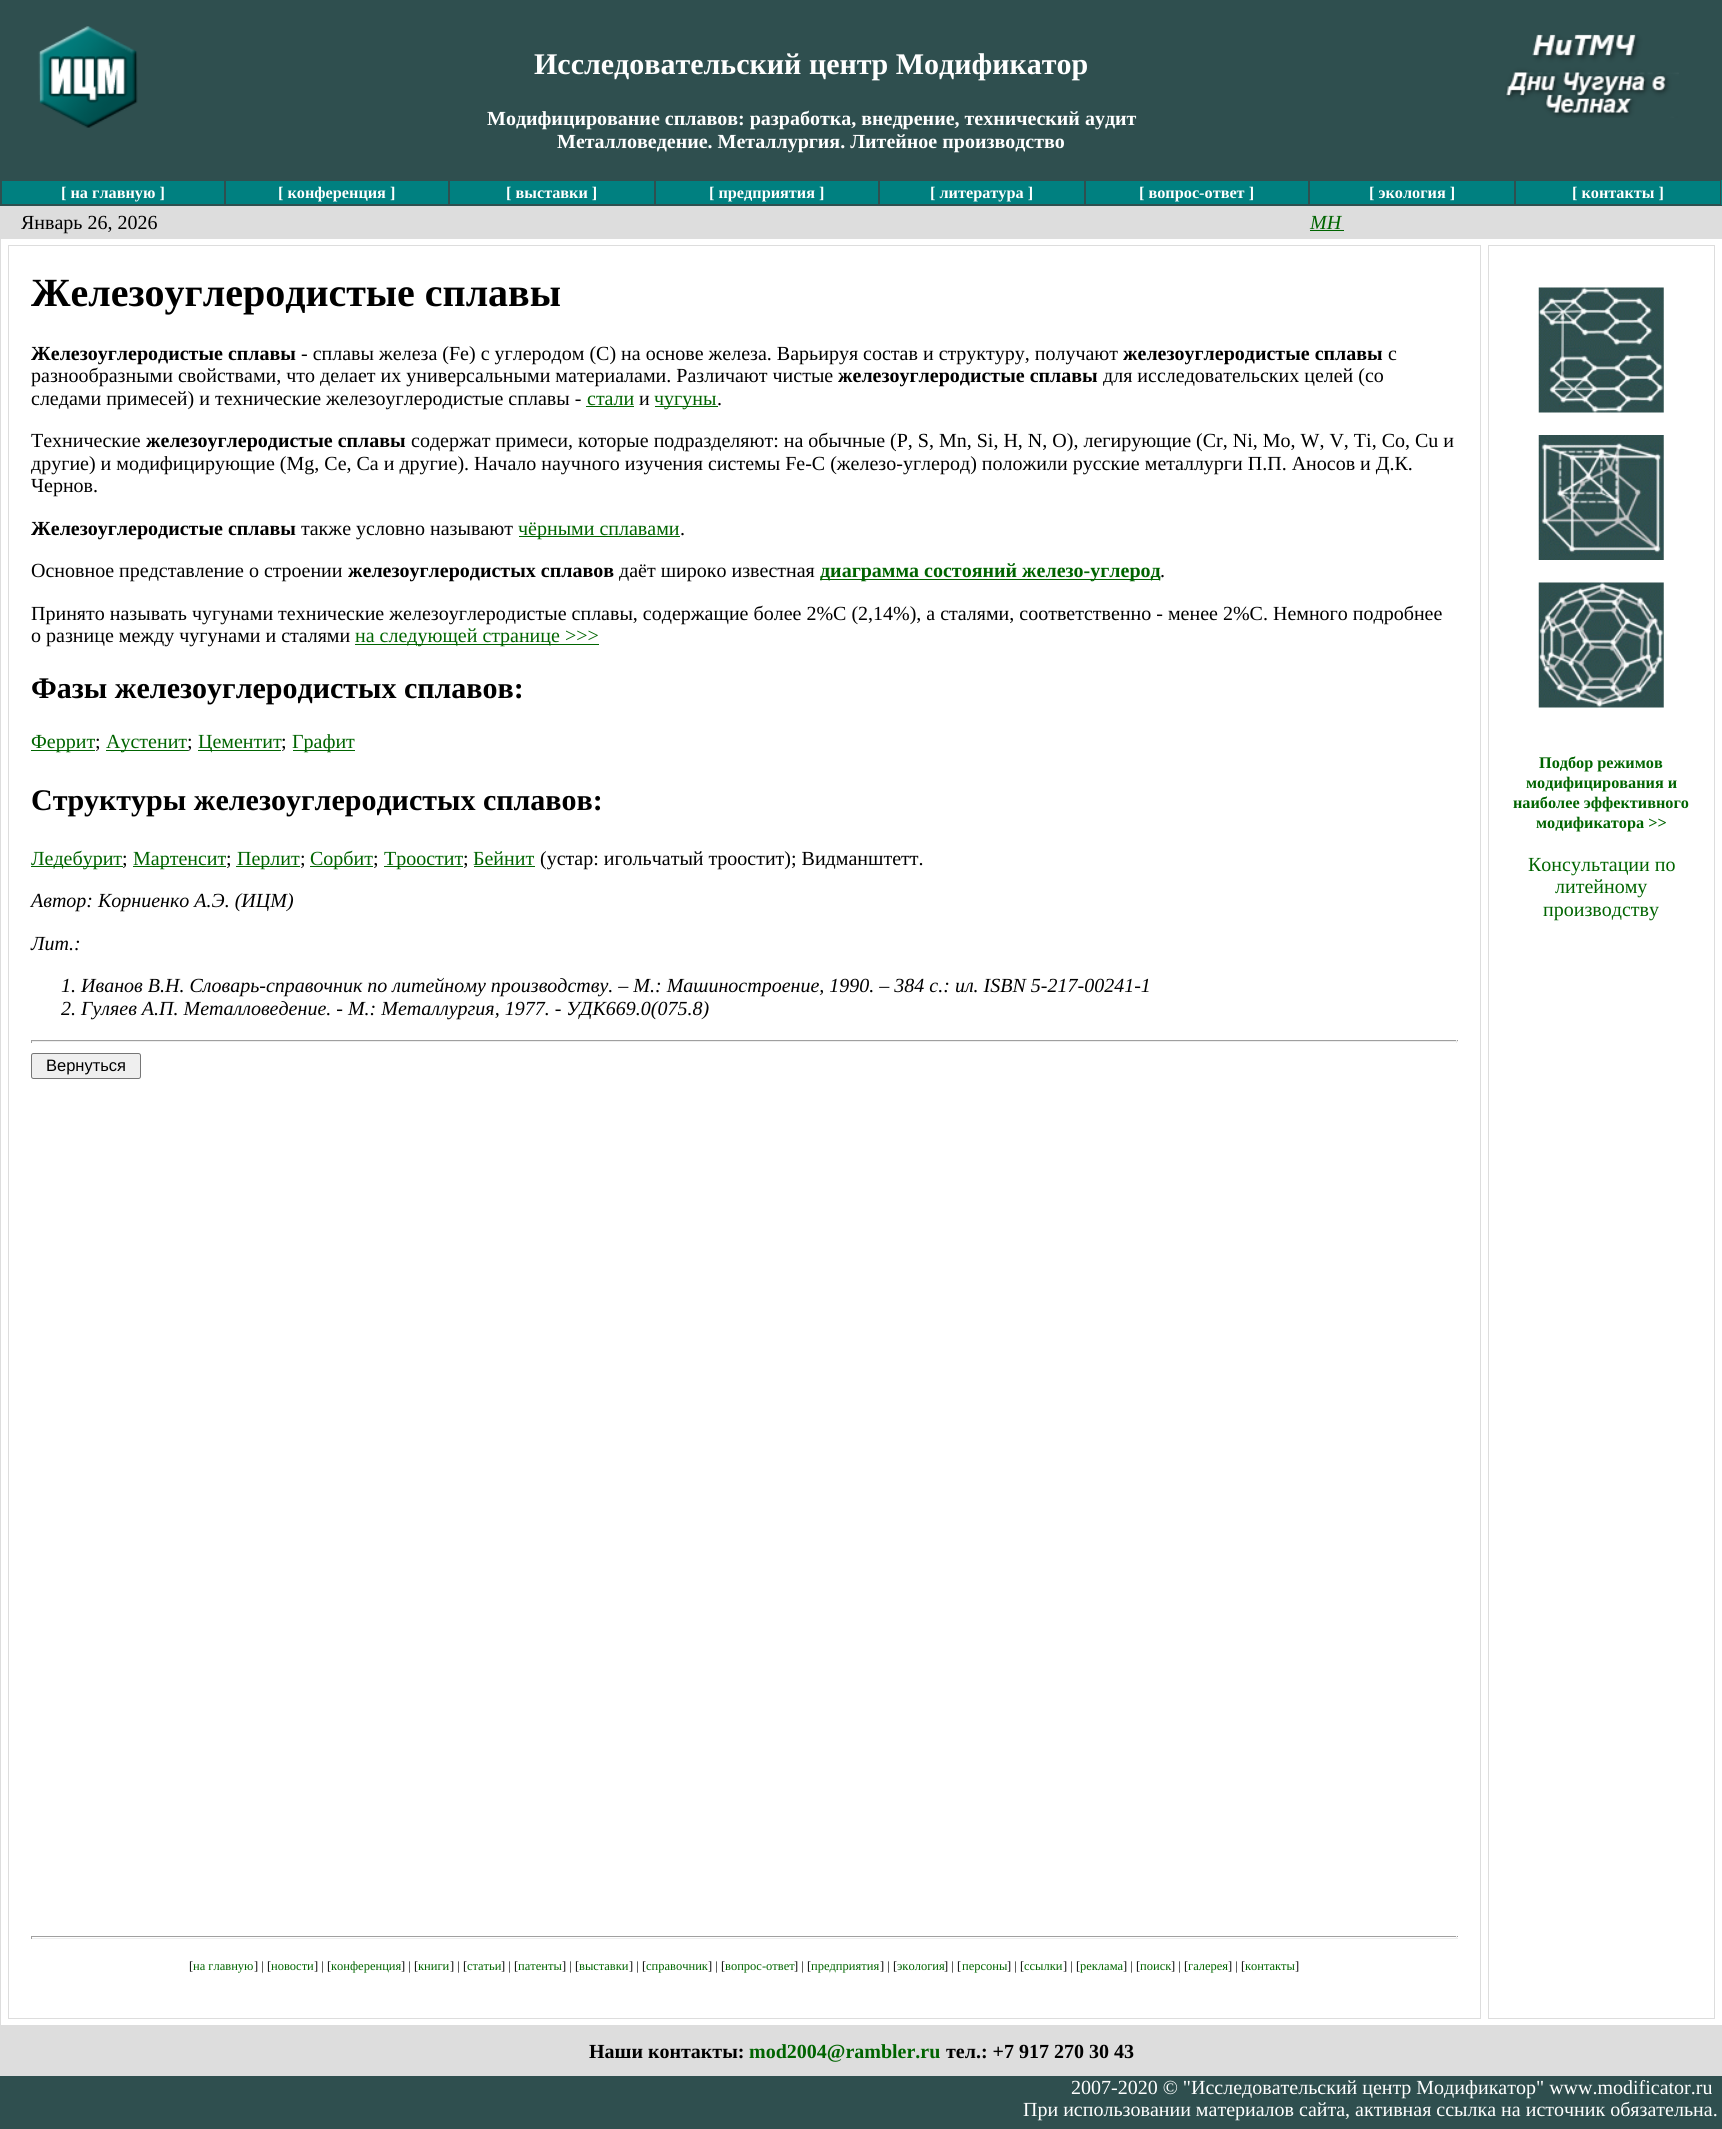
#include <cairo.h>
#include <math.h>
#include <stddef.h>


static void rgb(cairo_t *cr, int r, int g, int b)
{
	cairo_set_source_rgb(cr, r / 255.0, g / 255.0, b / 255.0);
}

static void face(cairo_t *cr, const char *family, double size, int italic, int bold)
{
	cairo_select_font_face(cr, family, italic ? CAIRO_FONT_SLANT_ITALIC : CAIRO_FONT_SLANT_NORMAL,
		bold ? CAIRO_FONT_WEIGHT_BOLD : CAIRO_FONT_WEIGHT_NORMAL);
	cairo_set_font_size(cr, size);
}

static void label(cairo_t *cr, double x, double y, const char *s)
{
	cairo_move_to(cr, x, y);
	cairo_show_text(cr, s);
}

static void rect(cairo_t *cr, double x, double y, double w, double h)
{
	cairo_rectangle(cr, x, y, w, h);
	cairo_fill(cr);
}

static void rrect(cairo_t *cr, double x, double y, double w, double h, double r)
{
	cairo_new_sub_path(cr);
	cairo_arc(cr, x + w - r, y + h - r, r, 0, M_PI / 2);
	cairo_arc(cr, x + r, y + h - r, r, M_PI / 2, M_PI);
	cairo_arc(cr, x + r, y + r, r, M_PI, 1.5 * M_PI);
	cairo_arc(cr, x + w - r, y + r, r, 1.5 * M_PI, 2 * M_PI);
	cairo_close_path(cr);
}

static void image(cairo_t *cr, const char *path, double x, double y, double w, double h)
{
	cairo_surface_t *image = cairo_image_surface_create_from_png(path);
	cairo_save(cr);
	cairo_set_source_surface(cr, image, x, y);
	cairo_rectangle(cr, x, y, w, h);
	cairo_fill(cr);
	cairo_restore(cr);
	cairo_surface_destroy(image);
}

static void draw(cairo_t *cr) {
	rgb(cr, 255, 255, 255);
	cairo_paint(cr);
	rgb(cr, 47, 79, 79);
	rect(cr, 0, 0, 1722, 179);
	image(cr, "image0.png", 38, 26, 100, 102);
	face(cr, "Liberation Serif", 30, 0, 1);
	rgb(cr, 255, 255, 255);
	label(cr, 534, 74, "Исследовательский центр Модификатор");
	face(cr, "Liberation Serif", 20, 0, 1);
	label(cr, 487, 125, "Модифицирование сплавов: разработка, внедрение, технический аудит");
	label(cr, 557, 148, "Металловедение. Металлургия. Литейное производство");
	image(cr, "image1.png", 1505, 34, 174, 84);
	rgb(cr, 0, 128, 128);
	rect(cr, 2, 180, 1720, 25);
	cairo_rectangle(cr, 0.5, 179.5, 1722, 26);
	rgb(cr, 47, 79, 79);
	cairo_set_line_width(cr, 1);
	cairo_stroke(cr);
	cairo_rectangle(cr, 1.5, 180.5, 223, 24);
	cairo_stroke(cr);
	face(cr, "Liberation Serif", 16.25, 0, 1);
	rgb(cr, 255, 255, 255);
	label(cr, 61, 198, "[ на главную ]");
	cairo_rectangle(cr, 225.5, 180.5, 223, 24);
	rgb(cr, 47, 79, 79);
	cairo_stroke(cr);
	rgb(cr, 255, 255, 255);
	label(cr, 278, 198, "[ конференция ]");
	cairo_rectangle(cr, 449.5, 180.5, 205, 24);
	rgb(cr, 47, 79, 79);
	cairo_stroke(cr);
	rgb(cr, 255, 255, 255);
	label(cr, 506, 198, "[ выставки ]");
	cairo_rectangle(cr, 655.5, 180.5, 223, 24);
	rgb(cr, 47, 79, 79);
	cairo_stroke(cr);
	rgb(cr, 255, 255, 255);
	label(cr, 709, 198, "[ предприятия ]");
	cairo_rectangle(cr, 879.5, 180.5, 205, 24);
	rgb(cr, 47, 79, 79);
	cairo_stroke(cr);
	rgb(cr, 255, 255, 255);
	label(cr, 930, 198, "[ литература ]");
	cairo_rectangle(cr, 1085.5, 180.5, 223, 24);
	rgb(cr, 47, 79, 79);
	cairo_stroke(cr);
	rgb(cr, 255, 255, 255);
	label(cr, 1139, 198, "[ вопрос-ответ ]");
	cairo_rectangle(cr, 1309.5, 180.5, 205, 24);
	rgb(cr, 47, 79, 79);
	cairo_stroke(cr);
	rgb(cr, 255, 255, 255);
	label(cr, 1369, 198, "[ экология ]");
	cairo_rectangle(cr, 1515.5, 180.5, 205, 24);
	rgb(cr, 47, 79, 79);
	cairo_stroke(cr);
	rgb(cr, 255, 255, 255);
	label(cr, 1572, 198, "[ контакты ]");
	rgb(cr, 221, 221, 221);
	rect(cr, 0, 206, 1722, 32);
	face(cr, "Liberation Serif", 20, 0, 0);
	rgb(cr, 0, 0, 0);
	label(cr, 21, 229, "Январь 26, 2026");
	face(cr, "Liberation Serif", 20, 1, 0);
	rgb(cr, 0, 100, 0);
	label(cr, 1310, 229, "МН");
	rect(cr, 1310, 230, 34, 1);
	cairo_rectangle(cr, 0.5, 238.5, 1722, 1787);
	rgb(cr, 221, 221, 221);
	cairo_stroke(cr);
	cairo_rectangle(cr, 8.5, 245.5, 1472, 1773);
	cairo_stroke(cr);
	face(cr, "Liberation Serif", 40, 0, 1);
	rgb(cr, 0, 0, 0);
	label(cr, 31, 306, "Железоуглеродистые сплавы");
	face(cr, "Liberation Serif", 20, 0, 1);
	label(cr, 31, 360, "Железоуглеродистые сплавы");
	face(cr, "Liberation Serif", 20, 0, 0);
	label(cr, 301, 360, "- сплавы железа (Fe) с углеродом (C) на основе железа. Варьируя состав и структуру, получают");
	face(cr, "Liberation Serif", 20, 0, 1);
	label(cr, 1123, 360, "железоуглеродистые сплавы");
	face(cr, "Liberation Serif", 20, 0, 0);
	label(cr, 1388, 360, "с");
	label(cr, 31, 382, "разнообразными свойствами, что делает их универсальными материалами. Различают чистые");
	face(cr, "Liberation Serif", 20, 0, 1);
	label(cr, 838, 382, "железоуглеродистые сплавы");
	face(cr, "Liberation Serif", 20, 0, 0);
	label(cr, 1103, 382, "для исследовательских целей (со");
	label(cr, 31, 405, "следами примесей) и технические железоуглеродистые сплавы -");
	rgb(cr, 0, 100, 0);
	label(cr, 587, 405, "стали");
	rect(cr, 586, 406, 48, 1);
	rgb(cr, 0, 0, 0);
	label(cr, 639, 405, "и");
	rgb(cr, 0, 100, 0);
	rect(cr, 655, 406, 63, 1);
	label(cr, 654, 405, "чугуны");
	rgb(cr, 0, 0, 0);
	label(cr, 717, 405, ".");
	label(cr, 31, 447, "Технические");
	face(cr, "Liberation Serif", 20, 0, 1);
	label(cr, 146, 447, "железоуглеродистые сплавы");
	face(cr, "Liberation Serif", 20, 0, 0);
	label(cr, 411, 447, "содержат примеси, которые подразделяют: на обычные (P, S, Mn, Si, H, N, O), легирующие (Cr, Ni, Mo, W, V, Ti, Co, Cu и");
	label(cr, 31, 470, "другие) и модифицирующие (Mg, Ce, Ca и другие). Начало научного изучения системы Fe-C (железо-углерод) положили русские металлурги П.П. Аносов и Д.К.");
	label(cr, 31, 492, "Чернов.");
	face(cr, "Liberation Serif", 20, 0, 1);
	label(cr, 31, 535, "Железоуглеродистые сплавы");
	face(cr, "Liberation Serif", 20, 0, 0);
	label(cr, 301, 535, "также условно называют");
	rgb(cr, 0, 100, 0);
	rect(cr, 519, 536, 161, 1);
	label(cr, 518, 535, "чёрными сплавами");
	rgb(cr, 0, 0, 0);
	label(cr, 680, 535, ".");
	label(cr, 31, 577, "Основное представление о строении");
	face(cr, "Liberation Serif", 20, 0, 1);
	label(cr, 348, 577, "железоуглеродистых сплавов");
	face(cr, "Liberation Serif", 20, 0, 0);
	label(cr, 619, 577, "даёт широко известная");
	rgb(cr, 0, 100, 0);
	rect(cr, 820, 579, 340, 1);
	face(cr, "Liberation Serif", 20, 0, 1);
	label(cr, 820, 577, "диаграмма состояний железо-углерод");
	face(cr, "Liberation Serif", 20, 0, 0);
	rgb(cr, 0, 0, 0);
	label(cr, 1160, 577, ".");
	label(cr, 31, 620, "Принято называть чугунами технические железоуглеродистые сплавы, содержащие более 2%C (2,14%), а сталями, соответственно - менее 2%C. Немного подробнее");
	label(cr, 31, 642, "о разнице между чугунами и сталями");
	rgb(cr, 0, 100, 0);
	rect(cr, 355, 644, 244, 1);
	label(cr, 355, 642, "на следующей странице >>>");
	face(cr, "Liberation Serif", 30, 0, 1);
	rgb(cr, 0, 0, 0);
	label(cr, 31, 698, "Фазы железоуглеродистых сплавов:");
	rgb(cr, 0, 100, 0);
	rect(cr, 31, 750, 64, 1);
	face(cr, "Liberation Serif", 20, 0, 0);
	label(cr, 31, 748, "Феррит");
	rgb(cr, 0, 0, 0);
	label(cr, 95, 748, ";");
	rgb(cr, 0, 100, 0);
	rect(cr, 106, 750, 82, 1);
	label(cr, 106, 748, "Аустенит");
	rgb(cr, 0, 0, 0);
	label(cr, 187, 748, ";");
	rgb(cr, 0, 100, 0);
	rect(cr, 198, 750, 83, 1);
	label(cr, 198, 748, "Цементит");
	rgb(cr, 0, 0, 0);
	label(cr, 281, 748, ";");
	rgb(cr, 0, 100, 0);
	rect(cr, 293, 750, 62, 1);
	label(cr, 292, 748, "Графит");
	face(cr, "Liberation Serif", 30, 0, 1);
	rgb(cr, 0, 0, 0);
	label(cr, 31, 810, "Структуры железоуглеродистых сплавов:");
	rgb(cr, 0, 100, 0);
	rect(cr, 31, 866, 92, 1);
	face(cr, "Liberation Serif", 20, 0, 0);
	label(cr, 31, 865, "Ледебурит");
	rgb(cr, 0, 0, 0);
	label(cr, 122, 865, ";");
	rgb(cr, 0, 100, 0);
	rect(cr, 133, 866, 93, 1);
	label(cr, 133, 865, "Мартенсит");
	rgb(cr, 0, 0, 0);
	label(cr, 226, 865, ";");
	rgb(cr, 0, 100, 0);
	rect(cr, 236, 866, 64, 1);
	label(cr, 237, 865, "Перлит");
	rgb(cr, 0, 0, 0);
	label(cr, 300, 865, ";");
	rgb(cr, 0, 100, 0);
	rect(cr, 310, 866, 63, 1);
	label(cr, 310, 865, "Сорбит");
	rgb(cr, 0, 0, 0);
	label(cr, 373, 865, ";");
	rgb(cr, 0, 100, 0);
	rect(cr, 384, 866, 79, 1);
	label(cr, 384, 865, "Троостит");
	rgb(cr, 0, 0, 0);
	label(cr, 463, 865, ";");
	rgb(cr, 0, 100, 0);
	label(cr, 473, 865, "Бейнит");
	rect(cr, 474, 866, 61, 1);
	rgb(cr, 0, 0, 0);
	label(cr, 540, 865, "(устар: игольчатый троостит); Видманштетт.");
	face(cr, "Liberation Serif", 20, 1, 0);
	label(cr, 31, 907, "Автор: Корниенко А.Э. (ИЦМ)");
	label(cr, 31, 950, "Лит.:");
	label(cr, 61, 992, "1. Иванов В.Н. Словарь-справочник по литейному производству. – М.: Машиностроение, 1990. – 384 с.: ил. ISBN 5-217-00241-1");
	label(cr, 61, 1015, "2. Гуляев А.П. Металловедение. - М.: Металлургия, 1977. - УДК669.0(075.8)");
	rgb(cr, 159, 159, 159);
	rect(cr, 31, 1040, 1427, 1);
	rgb(cr, 238, 238, 238);
	rect(cr, 1456, 1040, 1, 3);
	rect(cr, 31, 1041, 1427, 1);
	rgb(cr, 159, 159, 159);
	rect(cr, 31, 1040, 1, 3);
	rgb(cr, 239, 239, 239);
	rrect(cr, 31.5, 1053.5, 109, 25, 2);
	cairo_fill_preserve(cr);
	rgb(cr, 118, 118, 118);
	cairo_stroke(cr);
	face(cr, "Liberation Sans", 16.5, 0, 0);
	rgb(cr, 0, 0, 0);
	label(cr, 46, 1071, "Вернуться");
	rgb(cr, 159, 159, 159);
	rect(cr, 31, 1936, 1427, 1);
	rgb(cr, 238, 238, 238);
	rect(cr, 1456, 1936, 1, 3);
	rect(cr, 31, 1938, 1427, 1);
	rgb(cr, 159, 159, 159);
	rect(cr, 31, 1936, 1, 3);
	face(cr, "Liberation Serif", 12.5, 0, 0);
	rgb(cr, 0, 0, 0);
	label(cr, 189, 1970, "[");
	rgb(cr, 0, 100, 0);
	label(cr, 193, 1970, "на главную");
	rgb(cr, 0, 0, 0);
	label(cr, 254, 1970, "] | [");
	rgb(cr, 0, 100, 0);
	label(cr, 271, 1970, "новости");
	rgb(cr, 0, 0, 0);
	label(cr, 314, 1970, "] | [");
	rgb(cr, 0, 100, 0);
	label(cr, 331, 1970, "конференция");
	rgb(cr, 0, 0, 0);
	label(cr, 401, 1970, "] | [");
	rgb(cr, 0, 100, 0);
	label(cr, 418, 1970, "книги");
	rgb(cr, 0, 0, 0);
	label(cr, 450, 1970, "] | [");
	rgb(cr, 0, 100, 0);
	label(cr, 467, 1970, "статьи");
	rgb(cr, 0, 0, 0);
	label(cr, 501, 1970, "] | [");
	rgb(cr, 0, 100, 0);
	label(cr, 518, 1970, "патенты");
	rgb(cr, 0, 0, 0);
	label(cr, 562, 1970, "] | [");
	rgb(cr, 0, 100, 0);
	label(cr, 579, 1970, "выставки");
	rgb(cr, 0, 0, 0);
	label(cr, 629, 1970, "] | [");
	rgb(cr, 0, 100, 0);
	label(cr, 646, 1970, "справочник");
	rgb(cr, 0, 0, 0);
	label(cr, 708, 1970, "] | [");
	rgb(cr, 0, 100, 0);
	label(cr, 725, 1970, "вопрос-ответ");
	rgb(cr, 0, 0, 0);
	label(cr, 794, 1970, "] | [");
	rgb(cr, 0, 100, 0);
	label(cr, 811, 1970, "предприятия");
	rgb(cr, 0, 0, 0);
	label(cr, 880, 1970, "] | [");
	rgb(cr, 0, 100, 0);
	label(cr, 897, 1970, "экология");
	rgb(cr, 0, 0, 0);
	label(cr, 944, 1970, "] | [");
	rgb(cr, 0, 100, 0);
	label(cr, 962, 1970, "персоны");
	rgb(cr, 0, 0, 0);
	label(cr, 1007, 1970, "] | [");
	rgb(cr, 0, 100, 0);
	label(cr, 1024, 1970, "ссылки");
	rgb(cr, 0, 0, 0);
	label(cr, 1063, 1970, "] | [");
	rgb(cr, 0, 100, 0);
	label(cr, 1080, 1970, "реклама");
	rgb(cr, 0, 0, 0);
	label(cr, 1123, 1970, "] | [");
	rgb(cr, 0, 100, 0);
	label(cr, 1140, 1970, "поиск");
	rgb(cr, 0, 0, 0);
	label(cr, 1171, 1970, "] | [");
	rgb(cr, 0, 100, 0);
	label(cr, 1188, 1970, "галерея");
	rgb(cr, 0, 0, 0);
	label(cr, 1228, 1970, "] | [");
	rgb(cr, 0, 100, 0);
	label(cr, 1245, 1970, "контакты");
	rgb(cr, 0, 0, 0);
	label(cr, 1295, 1970, "]");
	cairo_rectangle(cr, 1488.5, 245.5, 226, 1773);
	rgb(cr, 221, 221, 221);
	cairo_stroke(cr);
	image(cr, "image2.png", 1538, 287, 126, 126);
	image(cr, "image3.png", 1538, 435, 126, 125);
	image(cr, "image4.png", 1538, 582, 126, 126);
	face(cr, "Liberation Serif", 16.25, 0, 1);
	rgb(cr, 0, 100, 0);
	label(cr, 1539, 768, "Подбор режимов");
	label(cr, 1526, 788, "модифицирования и");
	label(cr, 1513, 808, "наиболее эффективного");
	label(cr, 1536, 828, "модификатора >>");
	face(cr, "Liberation Serif", 20, 0, 0);
	label(cr, 1528, 871, "Консультации по");
	label(cr, 1555, 893, "литейному");
	label(cr, 1543, 916, "производству");
	rgb(cr, 221, 221, 221);
	rect(cr, 0, 2026, 1722, 50);
	face(cr, "Liberation Serif", 20, 0, 1);
	rgb(cr, 0, 0, 0);
	label(cr, 589, 2058, "Наши контакты:");
	rgb(cr, 0, 100, 0);
	label(cr, 749, 2058, "mod2004@rambler.ru");
	rgb(cr, 0, 0, 0);
	label(cr, 946, 2058, "тел.: +7 917 270 30 43");
	rgb(cr, 47, 79, 79);
	rect(cr, 0, 2076, 1722, 53);
	face(cr, "Liberation Serif", 20, 0, 0);
	rgb(cr, 255, 255, 255);
	label(cr, 1071, 2094, "2007-2020 © \"Исследовательский центр Модификатор\" www.modificator.ru");
	label(cr, 1023, 2116, "При использовании материалов сайта, активная ссылка на источник обязательна.");
}

int main(void) {
	cairo_surface_t *surface = cairo_image_surface_create(CAIRO_FORMAT_RGB24, 1722, 2129);
	cairo_t *cr = cairo_create(surface);
	cairo_font_options_t *options = cairo_font_options_create();
	cairo_font_options_set_hint_metrics(options, CAIRO_HINT_METRICS_OFF);
	cairo_font_options_set_hint_style(options, CAIRO_HINT_STYLE_NONE);
	cairo_set_font_options(cr, options);
	cairo_set_miter_limit(cr, 4);
	draw(cr);
	cairo_surface_write_to_png(surface, "render.png");
	cairo_font_options_destroy(options);
	cairo_destroy(cr);
	cairo_surface_destroy(surface);
	return 0;
}
